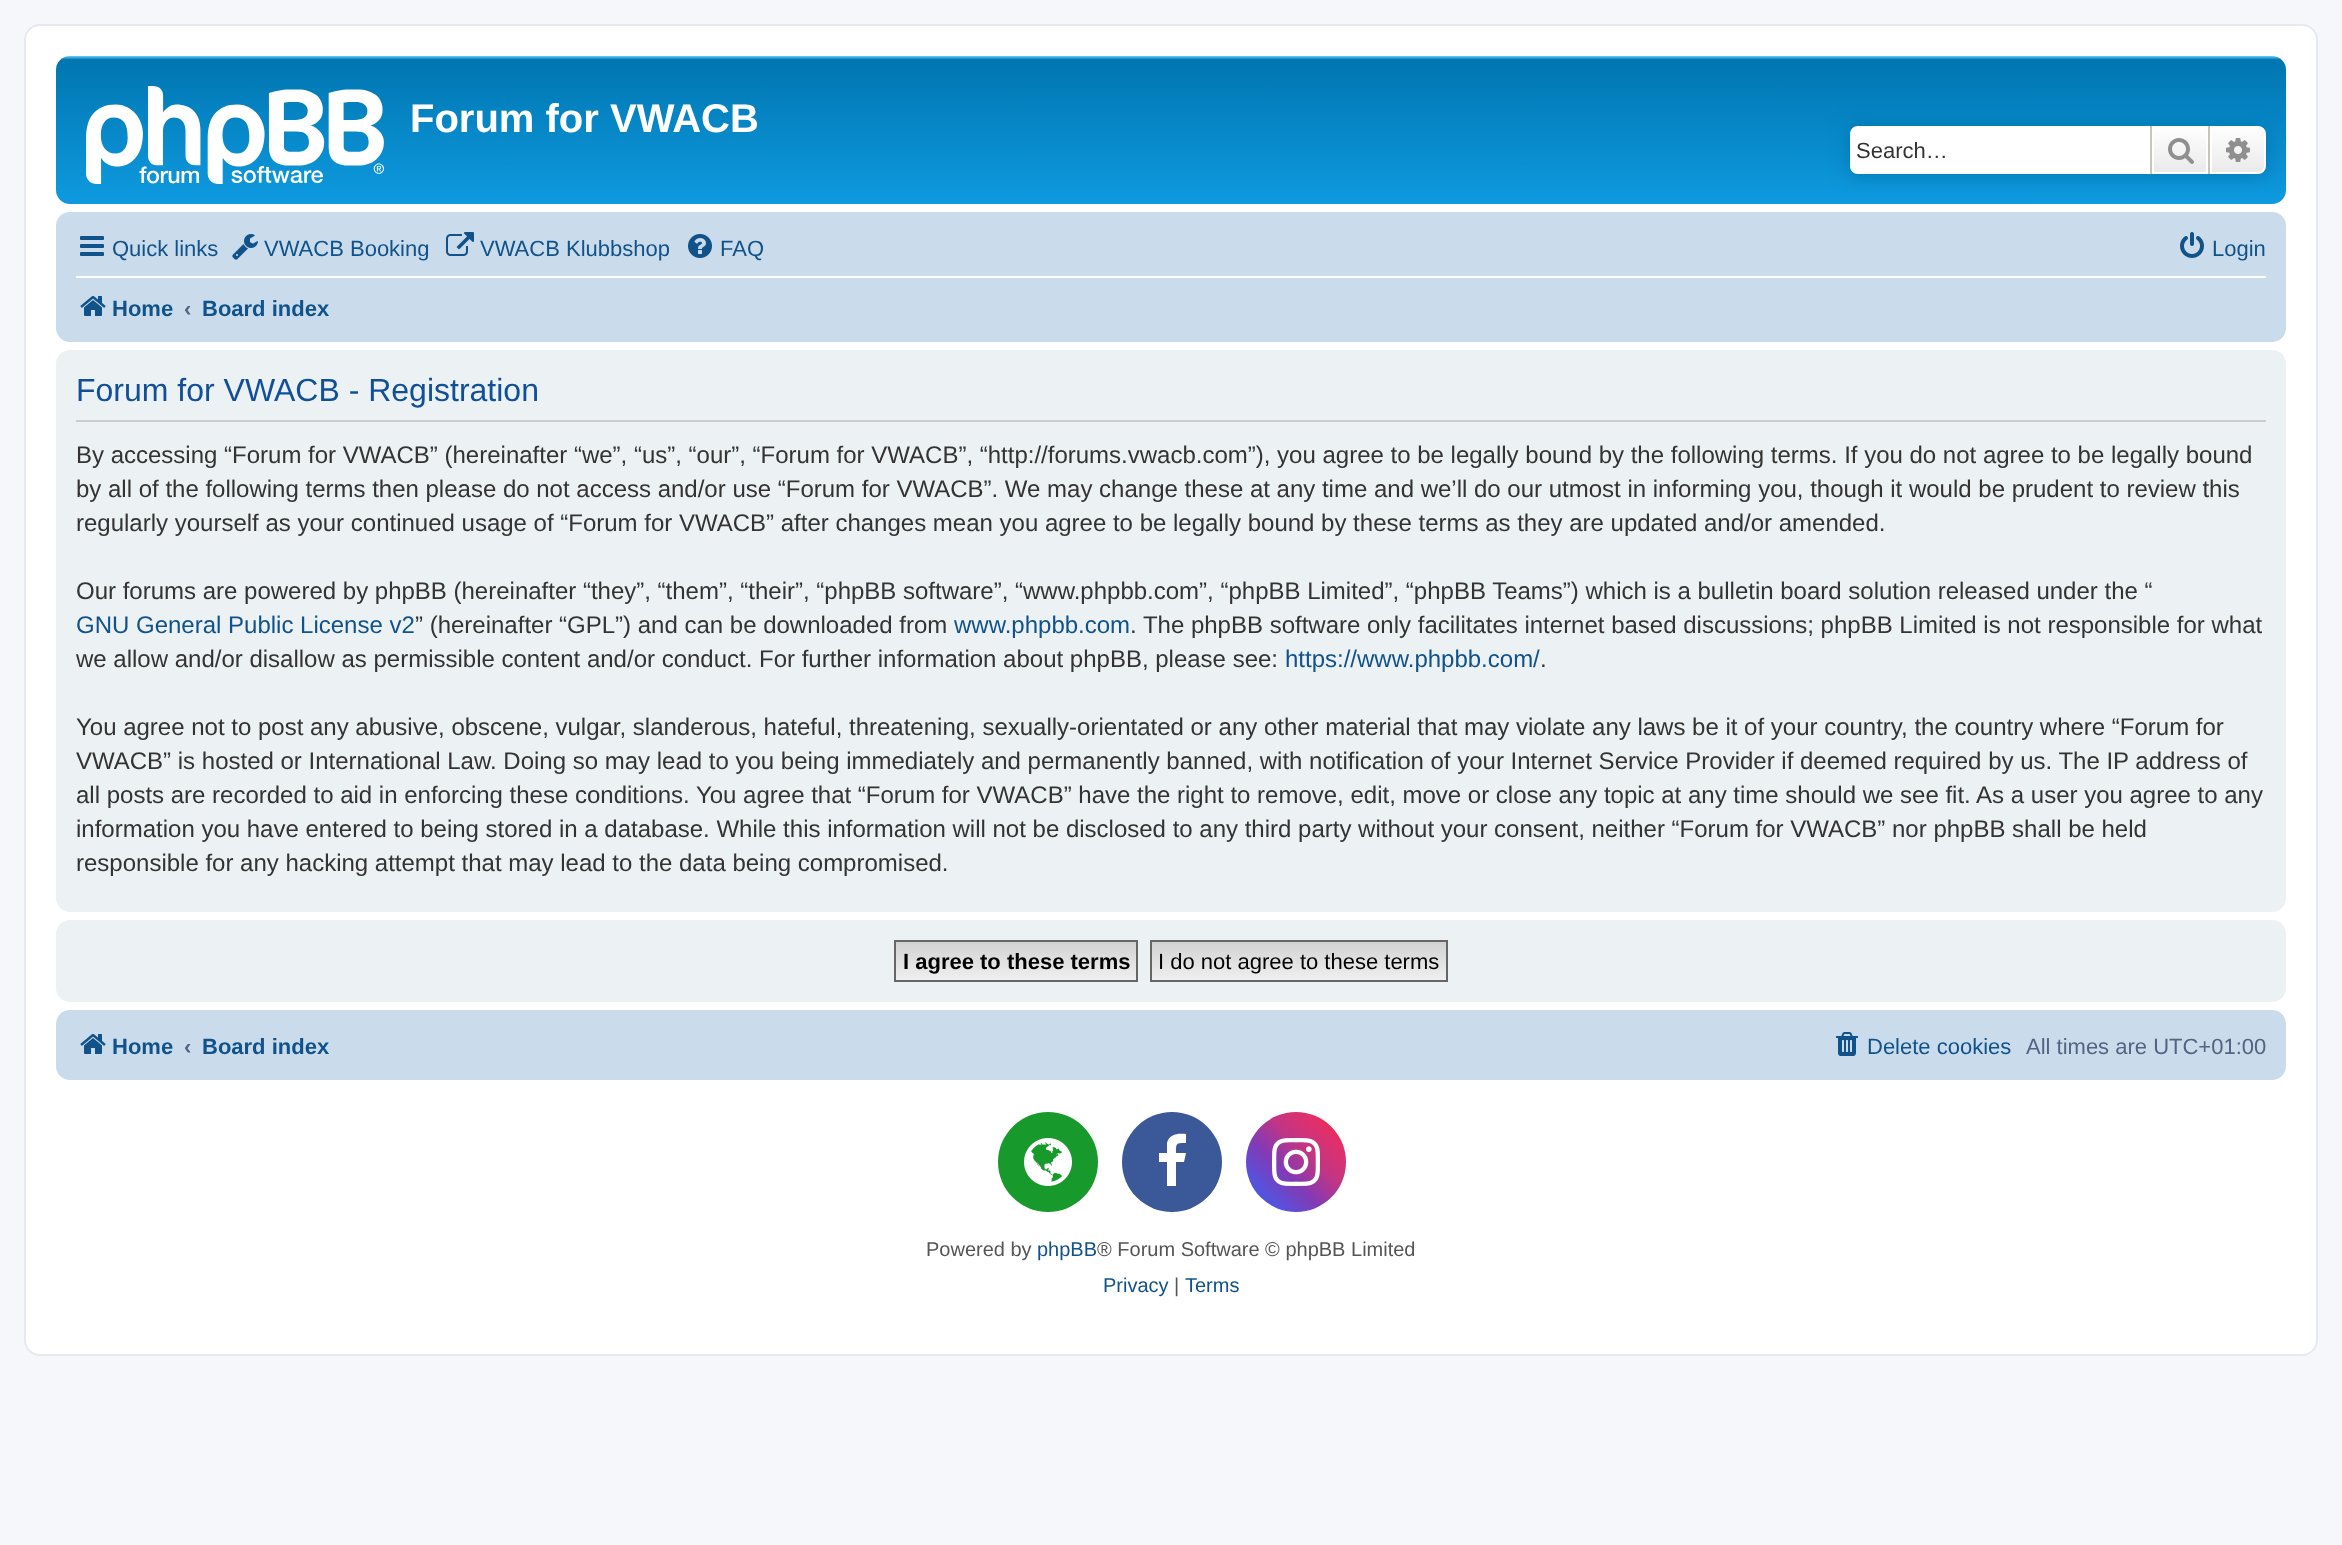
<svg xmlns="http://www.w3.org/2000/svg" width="2342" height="1545">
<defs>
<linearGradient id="g1" gradientUnits="userSpaceOnUse" x1="1171" y1="56" x2="1171" y2="240"><stop offset="0" stop-color="#6aceff"/><stop offset="0.02" stop-color="#0076b1"/><stop offset="1" stop-color="#12a3eb"/></linearGradient>
<linearGradient id="g2" gradientUnits="userSpaceOnUse" x1="2180" y1="126" x2="2180" y2="174"><stop offset="0" stop-color="#fff"/><stop offset="1" stop-color="#e9e9e9"/></linearGradient>
<linearGradient id="g3" gradientUnits="userSpaceOnUse" x1="2238" y1="126" x2="2238" y2="174"><stop offset="0" stop-color="#fff"/><stop offset="1" stop-color="#e9e9e9"/></linearGradient>
<linearGradient id="g4" gradientUnits="userSpaceOnUse" x1="1016" y1="942" x2="1016" y2="980"><stop offset="0" stop-color="#d2d2d2"/><stop offset="1" stop-color="#efefef"/></linearGradient>
<linearGradient id="g5" gradientUnits="userSpaceOnUse" x1="1299" y1="942" x2="1299" y2="980"><stop offset="0" stop-color="#d2d2d2"/><stop offset="1" stop-color="#efefef"/></linearGradient>
<linearGradient id="g6" gradientUnits="userSpaceOnUse" x1="1246" y1="1212" x2="1346" y2="1112"><stop offset="0" stop-color="#405de6"/><stop offset="0.2" stop-color="#5851db"/><stop offset="0.4" stop-color="#833ab4"/><stop offset="0.6" stop-color="#c13584"/><stop offset="0.8" stop-color="#e1306c"/><stop offset="1" stop-color="#fd1d1d"/></linearGradient>
</defs>
<rect width="100%" height="100%" fill="#f5f7fa"/>
<rect x="25" y="25" width="2292" height="1330" rx="15" fill="#fff" stroke="#e6e9ed" stroke-width="2"/>
<rect x="56" y="56" width="2230" height="148" rx="14" fill="url(#g1)"/>
<image x="86" y="86" width="298" height="98" href="media/1.png"/>
<text x="410" y="132" style="font-family:Liberation Sans;font-size:40px;font-weight:bold;fill:#fff">Forum for VWACB</text>
<rect x="1850" y="126" width="416" height="48" rx="8" fill="#0075b0" filter="blur(10px)"/>
<path d="M1858 126h292v48h-292c-4.5 0-8-3.5-8-8v-32c0-4.5 3.5-8 8-8z" fill="#fff"/>
<text x="1856" y="158" style="font-family:Liberation Sans;font-size:22px;fill:#333">Search…</text>
<rect x="2154" y="128" width="52" height="44" fill="url(#g2)"/>
<rect x="2153" y="127" width="54" height="46" fill="none" stroke="#fff" stroke-width="2"/>
<rect x="2208" y="126" width="2" height="48" fill="#c7c3bf"/>
<rect x="2150" y="126" width="2" height="48" fill="#c7c3bf"/>
<image x="2168" y="138" width="26" height="26" href="media/2.png"/>
<path d="M2211 127h47c4 0 7 3 7 7v32c0 4-3 7-7 7h-47z" fill="url(#g3)" stroke="#fff" stroke-width="2"/>
<image x="2226" y="138" width="24" height="24" href="media/3.png"/>
<rect x="56" y="212" width="2230" height="130" rx="14" fill="#cadceb"/>
<image x="80" y="236" width="24" height="20" href="media/4.png"/>
<text x="112" y="256" style="font-family:Liberation Sans;font-size:22px;fill:#105289">Quick links</text>
<image x="232" y="234" width="26" height="26" href="media/5.png"/>
<text x="264" y="256" style="font-family:Liberation Sans;font-size:22px;fill:#105289">VWACB Booking</text>
<image x="446" y="232" width="28" height="24" href="media/6.png"/>
<text x="480" y="256" style="font-family:Liberation Sans;font-size:22px;fill:#105289">VWACB Klubbshop</text>
<image x="688" y="234" width="24" height="24" href="media/7.png"/>
<text x="720" y="256" style="font-family:Liberation Sans;font-size:22px;fill:#105289">FAQ</text>
<image x="2180" y="232" width="24" height="26" href="media/8.png"/>
<text x="2212" y="256" style="font-family:Liberation Sans;font-size:22px;fill:#105289">Login</text>
<rect x="76" y="276" width="2190" height="2" fill="#fff"/>
<image x="80" y="296" width="26" height="20" href="media/9.png"/>
<text x="112" y="316" style="font-family:Liberation Sans;font-size:22px;font-weight:bold;fill:#105289">Home</text>
<text x="184" y="316" style="font-family:Liberation Sans;font-size:22px;font-weight:bold;fill:#536482">‹</text>
<text x="202" y="316" style="font-family:Liberation Sans;font-size:22px;font-weight:bold;fill:#105289">Board index</text>
<rect x="56" y="350" width="2230" height="562" rx="14" fill="#ecf1f3"/>
<rect x="76" y="420" width="2190" height="2" fill="#ccc"/>
<text x="76" y="401" style="font-family:Liberation Sans;font-size:32px;fill:#115098">Forum for VWACB - Registration</text>
<text x="76" y="463" style="font-family:Liberation Sans;font-size:24px;fill:#333">By accessing “Forum for VWACB” (hereinafter “we”, “us”, “our”, “Forum for VWACB”, “http://forums.vwacb.com”), you agree to be legally bound by the following terms. If you do not agree to be legally bound</text>
<text x="76" y="497" style="font-family:Liberation Sans;font-size:24px;fill:#333">by all of the following terms then please do not access and/or use “Forum for VWACB”. We may change these at any time and we’ll do our utmost in informing you, though it would be prudent to review this</text>
<text x="76" y="531" style="font-family:Liberation Sans;font-size:24px;fill:#333">regularly yourself as your continued usage of “Forum for VWACB” after changes mean you agree to be legally bound by these terms as they are updated and/or amended.</text>
<text x="76" y="599" style="font-family:Liberation Sans;font-size:24px;fill:#333">Our forums are powered by phpBB (hereinafter “they”, “them”, “their”, “phpBB software”, “www.phpbb.com”, “phpBB Limited”, “phpBB Teams”) which is a bulletin board solution released under the “</text>
<text x="76" y="633" style="font-family:Liberation Sans;font-size:24px;fill:#105289">GNU General Public License v2</text>
<text x="415" y="633" style="font-family:Liberation Sans;font-size:24px;fill:#333">” (hereinafter “GPL”) and can be downloaded from</text>
<text x="954" y="633" style="font-family:Liberation Sans;font-size:24px;fill:#105289">www.phpbb.com</text>
<text x="1130" y="633" style="font-family:Liberation Sans;font-size:24px;fill:#333">. The phpBB software only facilitates internet based discussions; phpBB Limited is not responsible for what</text>
<text x="76" y="667" style="font-family:Liberation Sans;font-size:24px;fill:#333">we allow and/or disallow as permissible content and/or conduct. For further information about phpBB, please see:</text>
<text x="1285" y="667" style="font-family:Liberation Sans;font-size:24px;fill:#105289">https://www.phpbb.com/</text>
<text x="1540" y="667" style="font-family:Liberation Sans;font-size:24px;fill:#333">.</text>
<text x="76" y="735" style="font-family:Liberation Sans;font-size:24px;fill:#333">You agree not to post any abusive, obscene, vulgar, slanderous, hateful, threatening, sexually-orientated or any other material that may violate any laws be it of your country, the country where “Forum for</text>
<text x="76" y="769" style="font-family:Liberation Sans;font-size:24px;fill:#333">VWACB” is hosted or International Law. Doing so may lead to you being immediately and permanently banned, with notification of your Internet Service Provider if deemed required by us. The IP address of</text>
<text x="76" y="803" style="font-family:Liberation Sans;font-size:24px;fill:#333">all posts are recorded to aid in enforcing these conditions. You agree that “Forum for VWACB” have the right to remove, edit, move or close any topic at any time should we see fit. As a user you agree to any</text>
<text x="76" y="837" style="font-family:Liberation Sans;font-size:24px;fill:#333">information you have entered to being stored in a database. While this information will not be disclosed to any third party without your consent, neither “Forum for VWACB” nor phpBB shall be held</text>
<text x="76" y="871" style="font-family:Liberation Sans;font-size:24px;fill:#333">responsible for any hacking attempt that may lead to the data being compromised.</text>
<rect x="56" y="920" width="2230" height="82" rx="14" fill="#ecf1f3"/>
<rect x="896" y="942" width="240" height="38" fill="url(#g4)"/>
<rect x="895" y="941" width="242" height="40" fill="none" stroke="#666" stroke-width="2"/>
<text x="903" y="969" style="font-family:Liberation Sans;font-size:22px;font-weight:bold;fill:#000">I agree to these terms</text>
<rect x="1152" y="942" width="294" height="38" fill="url(#g5)"/>
<rect x="1151" y="941" width="296" height="40" fill="none" stroke="#666" stroke-width="2"/>
<text x="1158" y="969" style="font-family:Liberation Sans;font-size:22px;fill:#000">I do not agree to these terms</text>
<rect x="56" y="1010" width="2230" height="70" rx="14" fill="#cadceb"/>
<image x="80" y="1034" width="26" height="20" href="media/9.png"/>
<text x="112" y="1054" style="font-family:Liberation Sans;font-size:22px;font-weight:bold;fill:#105289">Home</text>
<text x="184" y="1054" style="font-family:Liberation Sans;font-size:22px;font-weight:bold;fill:#536482">‹</text>
<text x="202" y="1054" style="font-family:Liberation Sans;font-size:22px;font-weight:bold;fill:#105289">Board index</text>
<image x="1836" y="1032" width="22" height="24" href="media/10.png"/>
<text x="1867" y="1054" style="font-family:Liberation Sans;font-size:22px;fill:#105289">Delete cookies</text>
<text x="2026" y="1054" style="font-family:Liberation Sans;font-size:22px;fill:#536482">All times are UTC+01:00</text>
<circle cx="1048" cy="1162" r="50" fill="#18992c"/>
<image x="1024" y="1138" width="48" height="48" href="media/11.png"/>
<circle cx="1172" cy="1162" r="50" fill="#3b5998"/>
<path d="M1186 1134v9c-10 0-10 0-10 10h10l-2 9h-8v24h-9v-24h-8v-9h8v-10c2-9 11-10 19-9z" fill="#fff"/>
<circle cx="1296" cy="1162" r="50" fill="url(#g6)"/>
<image x="1272" y="1138" width="48" height="48" href="media/12.png"/>
<text x="926" y="1256" style="font-family:Liberation Sans;font-size:20px;fill:#555">Powered by</text>
<text x="1037" y="1256" style="font-family:Liberation Sans;font-size:20px;fill:#105289">phpBB</text>
<text x="1097" y="1256" style="font-family:Liberation Sans;font-size:20px;fill:#555">® Forum Software © phpBB Limited</text>
<text x="1103" y="1292" style="font-family:Liberation Sans;font-size:20px;fill:#105289">Privacy</text>
<text x="1174" y="1292" style="font-family:Liberation Sans;font-size:20px;fill:#555">|</text>
<text x="1185" y="1292" style="font-family:Liberation Sans;font-size:20px;fill:#105289">Terms</text>
</svg>
